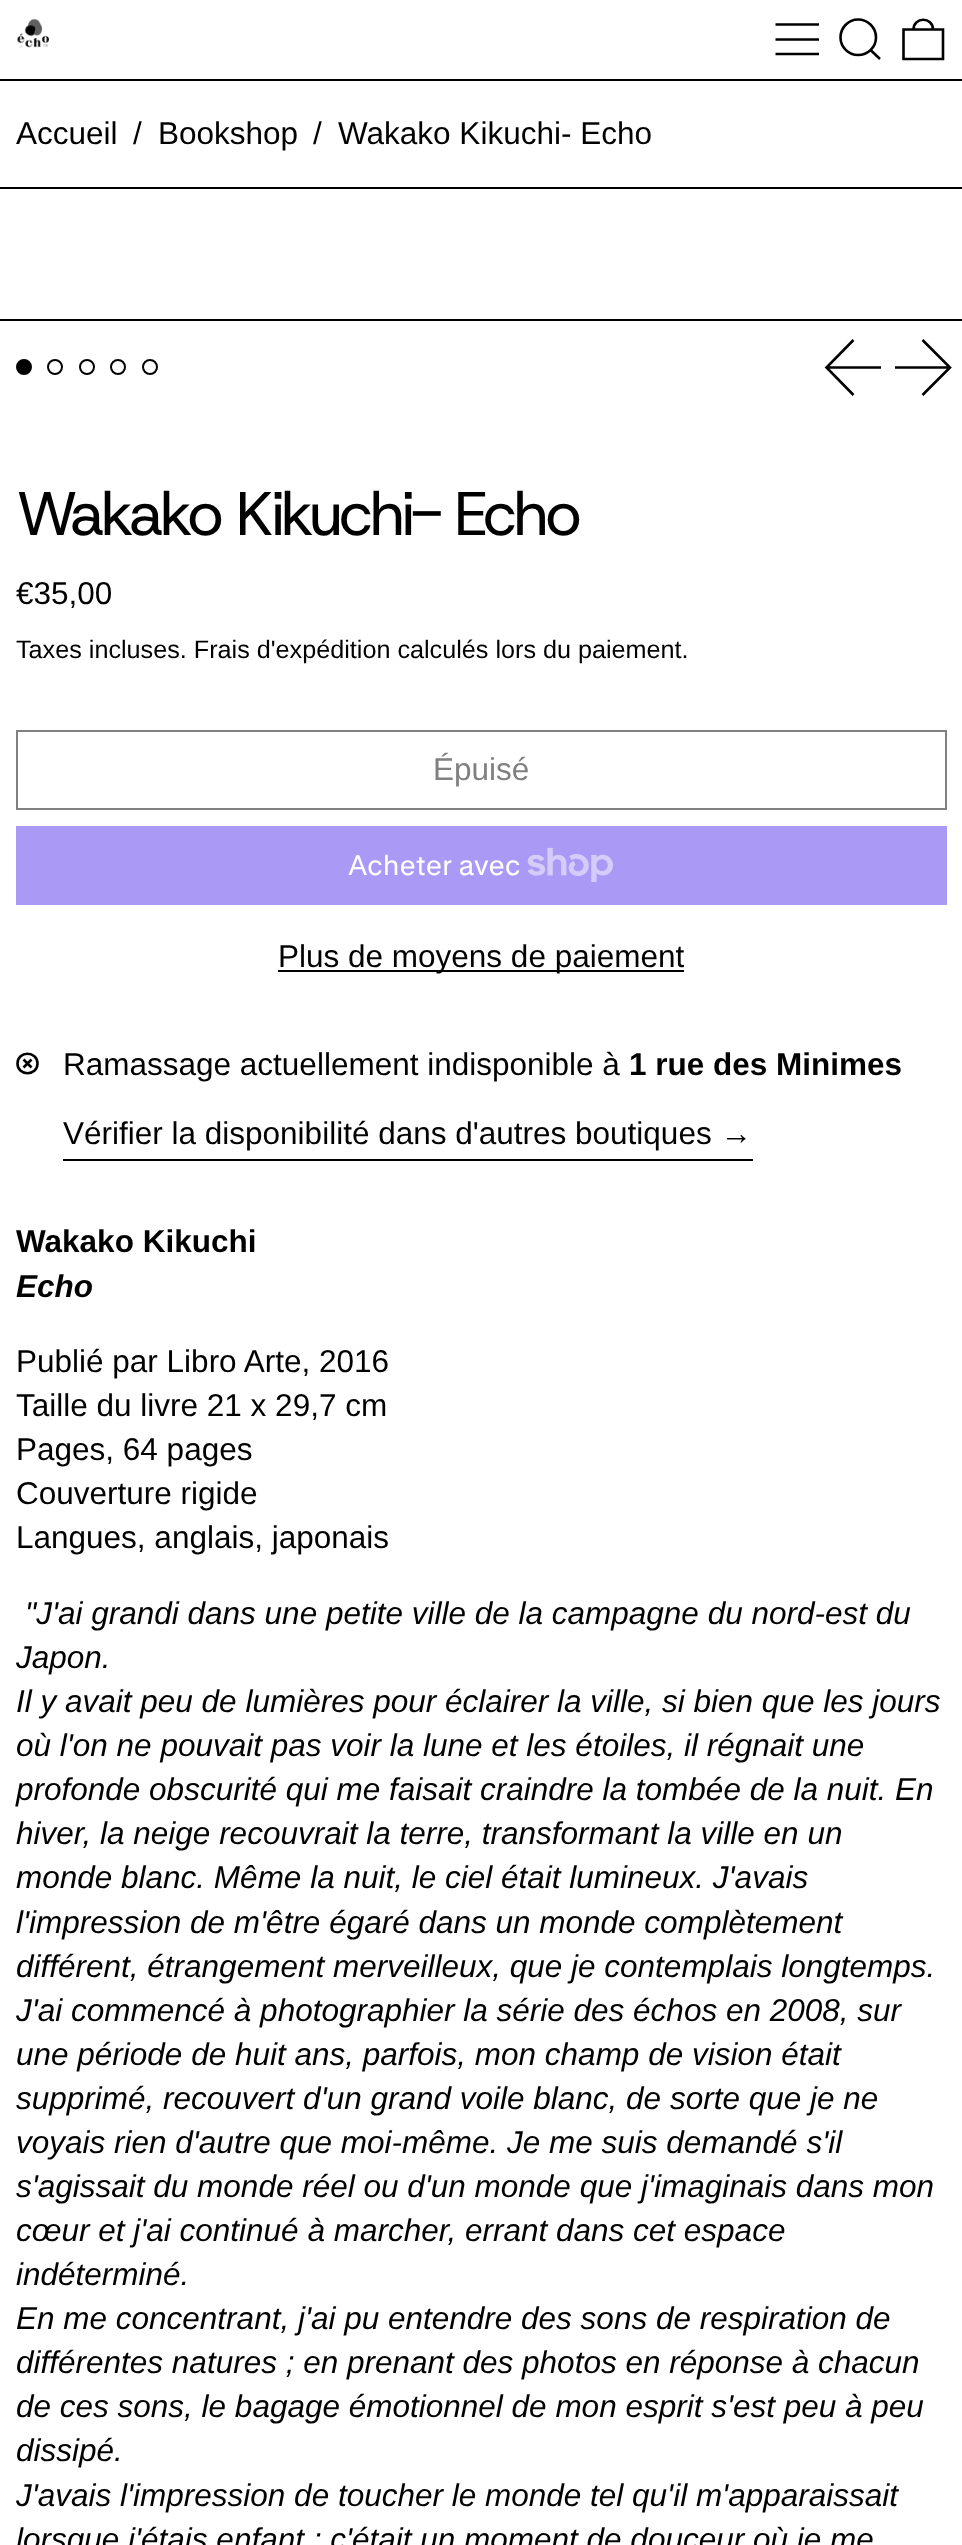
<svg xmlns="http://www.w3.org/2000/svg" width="962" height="2545">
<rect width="100%" height="100%" fill="#fff"/>
<rect y="79" width="962" height="2" fill="#000"/>
<image x="17" y="18" width="32" height="30" href="media/1.png"/>
<path d="M775.5 24.5h43.5m-43.5 15h43.5m-43.5 14.5h43.5" fill="none" stroke="#000" stroke-width="2.6"/>
<path d="M840.5 37.5c0 9.5 8 17.5 17.5 17.5c10 0 18-8 18-17.5c0-10-8-18-18-18c-9.5 0-17.5 8-17.5 18zm30 12.5l9.5 9" fill="none" stroke="#000" stroke-width="2.6"/>
<path d="M903.5 29.5h39.5v29.5h-39.5zm29.5 0c0-13-19.5-13-19.5 0" fill="none" stroke="#000" stroke-width="2.6"/>
<rect y="187" width="962" height="2" fill="#000"/>
<text x="16" y="144" style="font-family:Liberation Sans;font-size:31.5px;fill:#000">Accueil</text>
<text x="133" y="144" style="font-family:Liberation Sans;font-size:31.5px;fill:#000">/</text>
<text x="158" y="144" style="font-family:Liberation Sans;font-size:31.5px;fill:#000">Bookshop</text>
<text x="313" y="144" style="font-family:Liberation Sans;font-size:31.5px;fill:#000">/</text>
<text x="338" y="144" style="font-family:Liberation Sans;font-size:31.5px;fill:#000">Wakako Kikuchi- Echo</text>
<rect y="319" width="962" height="2" fill="#000"/>
<circle cx="24" cy="367" r="7" fill="#000" stroke="#000" stroke-width="2"/>
<circle cx="55" cy="367" r="7" fill="none" stroke="#000" stroke-width="2"/>
<circle cx="87" cy="367" r="7" fill="none" stroke="#000" stroke-width="2"/>
<circle cx="118" cy="367" r="7" fill="none" stroke="#000" stroke-width="2"/>
<circle cx="150" cy="367" r="7" fill="none" stroke="#000" stroke-width="2"/>
<path d="M881 367.5h-54.5m27 27.5l-27-27.5l27-27.5" fill="none" stroke="#000" stroke-width="2.6"/>
<path d="M895 367.5h55m-27.5 27.5l27.5-27.5l-27.5-27.5" fill="none" stroke="#000" stroke-width="2.6"/>
<text x="16" y="535" style="font-family:Host Grotesk;font-size:61.5px;letter-spacing:-3.1px;fill:#000">Wakako Kikuchi- Echo</text>
<text x="16" y="604" style="font-family:Liberation Sans;font-size:31.5px;fill:#000">€35,00</text>
<text x="16" y="658" style="font-family:Liberation Sans;font-size:25.2px;fill:#000">Taxes incluses. Frais d'expédition calculés lors du paiement.</text>
<rect x="17" y="731" width="929" height="78" fill="none" stroke="#808080" stroke-width="2"/>
<text x="433" y="780" style="font-family:Liberation Sans;font-size:31.5px;fill:#808080">Épuisé</text>
<rect x="16" y="826" width="931" height="79" fill="#aa99f5"/>
<text x="348" y="875" style="font-family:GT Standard;font-size:28px;fill:#fff">Acheter avec</text>
<image x="527" y="847" width="86" height="35" href="media/2.png"/>
<rect x="278" y="970" width="406" height="2" fill="#000"/>
<text x="278" y="967" style="font-family:Liberation Sans;font-size:31.5px;fill:#000">Plus de moyens de paiement</text>
<path d="M17.5 1063.5c0 13 20 13 20 0c0-13-20-13-20 0zm6-4l8 8m0-8l-8 8" fill="none" stroke="#000" stroke-width="2.6"/>
<text x="63" y="1075" style="font-family:Liberation Sans;font-size:31.5px;fill:#000">Ramassage actuellement indisponible à</text>
<text x="629" y="1075" style="font-family:Liberation Sans;font-size:31.5px;font-weight:bold;fill:#000">1 rue des Minimes</text>
<text x="63" y="1144" style="font-family:Liberation Sans;font-size:31.5px;fill:#000">Vérifier la disponibilité dans d'autres boutiques →</text>
<rect x="63" y="1159" width="690" height="2" fill="#000"/>
<text x="16" y="1252" style="font-family:Liberation Sans;font-size:31.5px;font-weight:bold;fill:#000">Wakako Kikuchi</text>
<text x="16" y="1297" style="font-family:Liberation Sans;font-size:31.5px;font-weight:bold;font-style:italic;fill:#000">Echo</text>
<text x="16" y="1372" style="font-family:Liberation Sans;font-size:31.5px;fill:#000">Publié par Libro Arte, 2016</text>
<text x="16" y="1416" style="font-family:Liberation Sans;font-size:31.5px;fill:#000">Taille du livre 21 x 29,7 cm</text>
<text x="16" y="1460" style="font-family:Liberation Sans;font-size:31.5px;fill:#000">Pages, 64 pages</text>
<text x="16" y="1504" style="font-family:Liberation Sans;font-size:31.5px;fill:#000">Couverture rigide</text>
<text x="16" y="1548" style="font-family:Liberation Sans;font-size:31.5px;fill:#000">Langues, anglais, japonais</text>
<text x="25" y="1624" style="font-family:Liberation Sans;font-size:31.5px;font-style:italic;fill:#000">"J'ai grandi dans une petite ville de la campagne du nord-est du</text>
<text x="16" y="1668" style="font-family:Liberation Sans;font-size:31.5px;font-style:italic;fill:#000">Japon.</text>
<text x="16" y="1712" style="font-family:Liberation Sans;font-size:31.5px;font-style:italic;fill:#000">Il y avait peu de lumières pour éclairer la ville, si bien que les jours</text>
<text x="16" y="1756" style="font-family:Liberation Sans;font-size:31.5px;font-style:italic;fill:#000">où l'on ne pouvait pas voir la lune et les étoiles, il régnait une</text>
<text x="16" y="1800" style="font-family:Liberation Sans;font-size:31.5px;font-style:italic;fill:#000">profonde obscurité qui me faisait craindre la tombée de la nuit. En</text>
<text x="16" y="1844" style="font-family:Liberation Sans;font-size:31.5px;font-style:italic;fill:#000">hiver, la neige recouvrait la terre, transformant la ville en un</text>
<text x="16" y="1888" style="font-family:Liberation Sans;font-size:31.5px;font-style:italic;fill:#000">monde blanc. Même la nuit, le ciel était lumineux. J'avais</text>
<text x="16" y="1933" style="font-family:Liberation Sans;font-size:31.5px;font-style:italic;fill:#000">l'impression de m'être égaré dans un monde complètement</text>
<text x="16" y="1977" style="font-family:Liberation Sans;font-size:31.5px;font-style:italic;fill:#000">différent, étrangement merveilleux, que je contemplais longtemps.</text>
<text x="16" y="2021" style="font-family:Liberation Sans;font-size:31.5px;font-style:italic;fill:#000">J'ai commencé à photographier la série des échos en 2008, sur</text>
<text x="16" y="2065" style="font-family:Liberation Sans;font-size:31.5px;font-style:italic;fill:#000">une période de huit ans, parfois, mon champ de vision était</text>
<text x="16" y="2109" style="font-family:Liberation Sans;font-size:31.5px;font-style:italic;fill:#000">supprimé, recouvert d'un grand voile blanc, de sorte que je ne</text>
<text x="16" y="2153" style="font-family:Liberation Sans;font-size:31.5px;font-style:italic;fill:#000">voyais rien d'autre que moi-même. Je me suis demandé s'il</text>
<text x="16" y="2197" style="font-family:Liberation Sans;font-size:31.5px;font-style:italic;fill:#000">s'agissait du monde réel ou d'un monde que j'imaginais dans mon</text>
<text x="16" y="2241" style="font-family:Liberation Sans;font-size:31.5px;font-style:italic;fill:#000">cœur et j'ai continué à marcher, errant dans cet espace</text>
<text x="16" y="2285" style="font-family:Liberation Sans;font-size:31.5px;font-style:italic;fill:#000">indéterminé.</text>
<text x="16" y="2329" style="font-family:Liberation Sans;font-size:31.5px;font-style:italic;fill:#000">En me concentrant, j'ai pu entendre des sons de respiration de</text>
<text x="16" y="2373" style="font-family:Liberation Sans;font-size:31.5px;font-style:italic;fill:#000">différentes natures ; en prenant des photos en réponse à chacun</text>
<text x="16" y="2417" style="font-family:Liberation Sans;font-size:31.5px;font-style:italic;fill:#000">de ces sons, le bagage émotionnel de mon esprit s'est peu à peu</text>
<text x="16" y="2461" style="font-family:Liberation Sans;font-size:31.5px;font-style:italic;fill:#000">dissipé.</text>
<text x="16" y="2506" style="font-family:Liberation Sans;font-size:31.5px;font-style:italic;fill:#000">J'avais l'impression de toucher le monde tel qu'il m'apparaissait</text>
<text x="16" y="2550" style="font-family:Liberation Sans;font-size:31.5px;font-style:italic;fill:#000">lorsque j'étais enfant ; c'était un moment de douceur où je me</text>
</svg>
